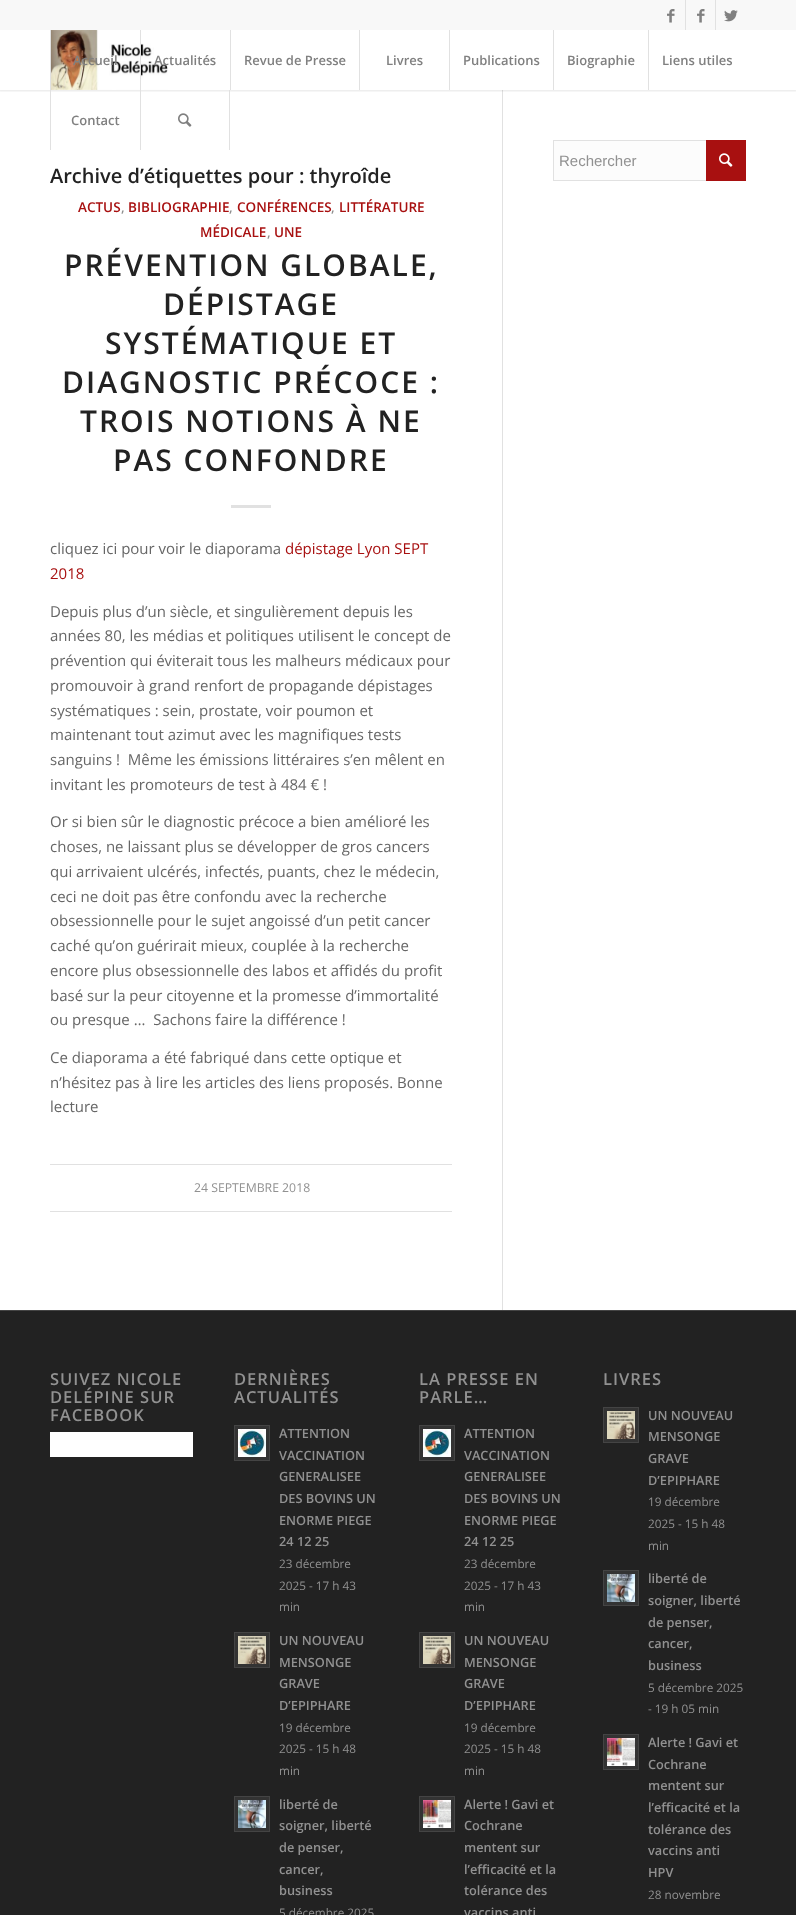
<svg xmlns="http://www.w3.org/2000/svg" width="796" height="1915">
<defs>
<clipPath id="clip1"><rect x="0" y="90" width="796" height="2"/></clipPath>
</defs>
<rect width="100%" height="100%" fill="#fff"/>
<rect x="502" y="90" width="1" height="1220" fill="#e1e1e1"/>
<g clip-path="url(#clip1)">
<rect x="-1" y="-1" width="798" height="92" fill="#0000001a" filter="blur(1px)"/>
</g>
<rect width="796" height="30" fill="#f8f8f8"/>
<rect x="685" width="1" height="30" fill="#e1e1e1"/>
<image x="667" y="9" width="8" height="14" href="media/1.png"/>
<rect x="715" width="1" height="30" fill="#e1e1e1"/>
<image x="697" y="9" width="8" height="14" href="media/1.png"/>
<image x="724" y="10" width="14" height="12" href="media/2.png"/>
<image x="51" y="30" width="117" height="60" href="media/3.png"/>
<rect x="50" y="30" width="1" height="120" fill="#e1e1e1"/>
<text x="73" y="65" style="font-family:Open Sans;font-size:13px;font-weight:600;fill:#808080">Accueil</text>
<rect x="140" y="30" width="1" height="120" fill="#e1e1e1"/>
<text x="154" y="65" style="font-family:Open Sans;font-size:13px;font-weight:600;fill:#808080">Actualités</text>
<rect x="230" y="30" width="1" height="60" fill="#e1e1e1"/>
<text x="244" y="65" style="font-family:Open Sans;font-size:13px;font-weight:600;fill:#808080">Revue de Presse</text>
<rect x="359" y="30" width="1" height="60" fill="#e1e1e1"/>
<text x="386" y="65" style="font-family:Open Sans;font-size:13px;font-weight:600;fill:#808080">Livres</text>
<rect x="449" y="30" width="1" height="60" fill="#e1e1e1"/>
<text x="463" y="65" style="font-family:Open Sans;font-size:13px;font-weight:600;fill:#808080">Publications</text>
<rect x="553" y="30" width="1" height="60" fill="#e1e1e1"/>
<text x="567" y="65" style="font-family:Open Sans;font-size:13px;font-weight:600;fill:#808080">Biographie</text>
<rect x="648" y="30" width="1" height="60" fill="#e1e1e1"/>
<text x="662" y="65" style="font-family:Open Sans;font-size:13px;font-weight:600;fill:#808080">Liens utiles</text>
<text x="71" y="125" style="font-family:Open Sans;font-size:13px;font-weight:600;fill:#808080">Contact</text>
<rect x="229" y="90" width="1" height="60" fill="#e1e1e1"/>
<image x="178" y="113" width="14" height="14" href="media/4.png"/>
<rect x="554" y="141" width="152" height="39" fill="#fcfcfc"/>
<rect x="553.5" y="140.5" width="192" height="40" fill="none" stroke="#e1e1e1"/>
<text x="559" y="166" style="font-family:Liberation Sans;font-size:15px;fill:#919191">Rechercher</text>
<rect x="706" y="140" width="40" height="41" fill="#a81010"/>
<image x="719" y="153" width="14" height="14" href="media/5.png"/>
<text x="50" y="183" style="font-family:Open Sans;font-size:20px;font-weight:600;fill:#222">Archive d’étiquettes pour : thyroîde</text>
<text x="78" y="212" style="font-family:Open Sans;font-size:13.5px;font-weight:600;fill:#a81010">ACTUS</text>
<text x="121" y="212" style="font-family:Open Sans;font-size:13.5px;font-weight:600;fill:#919191">,</text>
<text x="128" y="212" style="font-family:Open Sans;font-size:13.5px;font-weight:600;fill:#a81010">BIBLIOGRAPHIE</text>
<text x="229" y="212" style="font-family:Open Sans;font-size:13.5px;font-weight:600;fill:#919191">,</text>
<text x="237" y="212" style="font-family:Open Sans;font-size:13.5px;font-weight:600;fill:#a81010">CONFÉRENCES</text>
<text x="331" y="212" style="font-family:Open Sans;font-size:13.5px;font-weight:600;fill:#919191">,</text>
<text x="339" y="212" style="font-family:Open Sans;font-size:13.5px;font-weight:600;fill:#a81010">LITTÉRATURE</text>
<text x="200" y="237" style="font-family:Open Sans;font-size:13.5px;font-weight:600;fill:#a81010">MÉDICALE</text>
<text x="267" y="237" style="font-family:Open Sans;font-size:13.5px;font-weight:600;fill:#919191">,</text>
<text x="274" y="237" style="font-family:Open Sans;font-size:13.5px;font-weight:600;fill:#a81010">UNE</text>
<text x="64" y="276" style="font-family:Open Sans;font-size:30px;font-weight:600;letter-spacing:2px;fill:#222">PRÉVENTION GLOBALE,</text>
<text x="163" y="315" style="font-family:Open Sans;font-size:30px;font-weight:600;letter-spacing:2px;fill:#222">DÉPISTAGE</text>
<text x="105" y="354" style="font-family:Open Sans;font-size:30px;font-weight:600;letter-spacing:2px;fill:#222">SYSTÉMATIQUE ET</text>
<text x="62" y="393" style="font-family:Open Sans;font-size:30px;font-weight:600;letter-spacing:2px;fill:#222">DIAGNOSTIC PRÉCOCE :</text>
<text x="80" y="432" style="font-family:Open Sans;font-size:30px;font-weight:600;letter-spacing:2px;fill:#222">TROIS NOTIONS À NE</text>
<text x="113" y="471" style="font-family:Open Sans;font-size:30px;font-weight:600;letter-spacing:2px;fill:#222">PAS CONFONDRE</text>
<rect x="231" y="505" width="40" height="3" fill="#e1e1e1"/>
<text x="50" y="554" style="font-family:Open Sans;font-size:15px;fill:#666">cliquez ici pour voir le diaporama</text>
<text x="285" y="554" style="font-family:Open Sans;font-size:15px;fill:#a81010">dépistage Lyon SEPT</text>
<text x="50" y="579" style="font-family:Open Sans;font-size:15px;fill:#a81010">2018</text>
<text x="50" y="617" style="font-family:Open Sans;font-size:15px;fill:#666">Depuis plus d’un siècle, et singulièrement depuis les</text>
<text x="50" y="641" style="font-family:Open Sans;font-size:15px;fill:#666">années 80, les médias et politiques utilisent le concept de</text>
<text x="50" y="666" style="font-family:Open Sans;font-size:15px;fill:#666">prévention qui éviterait tous les malheurs médicaux pour</text>
<text x="50" y="691" style="font-family:Open Sans;font-size:15px;fill:#666">promouvoir à grand renfort de propagande dépistages</text>
<text x="50" y="716" style="font-family:Open Sans;font-size:15px;fill:#666">systématiques : sein, prostate, voir poumon et</text>
<text x="50" y="740" style="font-family:Open Sans;font-size:15px;fill:#666">maintenant tout azimut avec les magnifiques tests</text>
<text x="50" y="765" style="font-family:Open Sans;font-size:15px;fill:#666" xml:space="preserve">sanguins !  Même les émissions littéraires s’en mêlent en</text>
<text x="50" y="790" style="font-family:Open Sans;font-size:15px;fill:#666">invitant les promoteurs de test à 484 € !</text>
<text x="50" y="827" style="font-family:Open Sans;font-size:15px;fill:#666">Or si bien sûr le diagnostic précoce a bien amélioré les</text>
<text x="50" y="852" style="font-family:Open Sans;font-size:15px;fill:#666">choses, ne laissant plus se développer de gros cancers</text>
<text x="50" y="877" style="font-family:Open Sans;font-size:15px;fill:#666">qui arrivaient ulcérés, infectés, puants, chez le médecin,</text>
<text x="50" y="902" style="font-family:Open Sans;font-size:15px;fill:#666">ceci ne doit pas être confondu avec la recherche</text>
<text x="50" y="926" style="font-family:Open Sans;font-size:15px;fill:#666">obsessionnelle pour le sujet angoissé d’un petit cancer</text>
<text x="50" y="951" style="font-family:Open Sans;font-size:15px;fill:#666">caché qu’on guérirait mieux, couplée à la recherche</text>
<text x="50" y="976" style="font-family:Open Sans;font-size:15px;fill:#666">encore plus obsessionnelle des labos et affidés du profit</text>
<text x="50" y="1001" style="font-family:Open Sans;font-size:15px;fill:#666">basé sur la peur citoyenne et la promesse d’immortalité</text>
<text x="50" y="1025" style="font-family:Open Sans;font-size:15px;fill:#666" xml:space="preserve">ou presque …  Sachons faire la différence !</text>
<text x="50" y="1063" style="font-family:Open Sans;font-size:15px;fill:#666">Ce diaporama a été fabriqué dans cette optique et</text>
<text x="50" y="1088" style="font-family:Open Sans;font-size:15px;fill:#666">n’hésitez pas à lire les articles des liens proposés. Bonne</text>
<text x="50" y="1112" style="font-family:Open Sans;font-size:15px;fill:#666">lecture</text>
<rect x="50" y="1164" width="402" height="1" fill="#e1e1e1"/>
<rect x="50" y="1211" width="402" height="1" fill="#e1e1e1"/>
<text x="194" y="1192" style="font-family:Open Sans;font-size:12.25px;fill:#919191">24 SEPTEMBRE 2018</text>
<rect y="1311" width="796" height="604" fill="#222"/>
<rect y="1310" width="796" height="1" fill="#444"/>
<text x="50" y="1385" style="font-family:Open Sans;font-size:16.5px;font-weight:600;letter-spacing:1px;fill:#919191">SUIVEZ NICOLE</text>
<text x="50" y="1403" style="font-family:Open Sans;font-size:16.5px;font-weight:600;letter-spacing:1px;fill:#919191">DELÉPINE SUR</text>
<text x="50" y="1421" style="font-family:Open Sans;font-size:16.5px;font-weight:600;letter-spacing:1px;fill:#919191">FACEBOOK</text>
<rect x="50" y="1432" width="143" height="25" fill="#fff"/>
<text x="234" y="1385" style="font-family:Open Sans;font-size:16.5px;font-weight:600;letter-spacing:1px;fill:#919191">DERNIÈRES</text>
<text x="234" y="1403" style="font-family:Open Sans;font-size:16.5px;font-weight:600;letter-spacing:1px;fill:#919191">ACTUALITÉS</text>
<rect x="234.5" y="1425.5" width="35" height="35" fill="#333" stroke="#444"/>
<image x="238" y="1429" width="28" height="28" href="media/6.png"/>
<text x="279" y="1438" style="font-family:Open Sans;font-size:12.75px;font-weight:600;fill:#919191">ATTENTION</text>
<text x="279" y="1460" style="font-family:Open Sans;font-size:12.75px;font-weight:600;fill:#919191">VACCINATION</text>
<text x="279" y="1481" style="font-family:Open Sans;font-size:12.75px;font-weight:600;fill:#919191">GENERALISEE</text>
<text x="279" y="1503" style="font-family:Open Sans;font-size:12.75px;font-weight:600;fill:#919191">DES BOVINS UN</text>
<text x="279" y="1525" style="font-family:Open Sans;font-size:12.75px;font-weight:600;fill:#919191">ENORME PIEGE</text>
<text x="279" y="1546" style="font-family:Open Sans;font-size:12.75px;font-weight:600;fill:#919191">24 12 25</text>
<text x="279" y="1568" style="font-family:Open Sans;font-size:11.75px;fill:#919191">23 décembre</text>
<text x="279" y="1590" style="font-family:Open Sans;font-size:11.75px;fill:#919191">2025 - 17 h 43</text>
<text x="279" y="1611" style="font-family:Open Sans;font-size:11.75px;fill:#919191">min</text>
<rect x="234.5" y="1632.5" width="35" height="35" fill="#333" stroke="#444"/>
<image x="238" y="1636" width="28" height="28" href="media/7.png"/>
<text x="279" y="1645" style="font-family:Open Sans;font-size:12.75px;font-weight:600;fill:#919191">UN NOUVEAU</text>
<text x="279" y="1667" style="font-family:Open Sans;font-size:12.75px;font-weight:600;fill:#919191">MENSONGE</text>
<text x="279" y="1688" style="font-family:Open Sans;font-size:12.75px;font-weight:600;fill:#919191">GRAVE</text>
<text x="279" y="1710" style="font-family:Open Sans;font-size:12.75px;font-weight:600;fill:#919191">D’EPIPHARE</text>
<text x="279" y="1732" style="font-family:Open Sans;font-size:11.75px;fill:#919191">19 décembre</text>
<text x="279" y="1753" style="font-family:Open Sans;font-size:11.75px;fill:#919191">2025 - 15 h 48</text>
<text x="279" y="1775" style="font-family:Open Sans;font-size:11.75px;fill:#919191">min</text>
<rect x="234.5" y="1796.5" width="35" height="35" fill="#333" stroke="#444"/>
<image x="238" y="1800" width="28" height="28" href="media/8.png"/>
<text x="279" y="1809" style="font-family:Open Sans;font-size:12.75px;font-weight:600;fill:#919191">liberté de</text>
<text x="279" y="1830" style="font-family:Open Sans;font-size:12.75px;font-weight:600;fill:#919191">soigner, liberté</text>
<text x="279" y="1852" style="font-family:Open Sans;font-size:12.75px;font-weight:600;fill:#919191">de penser,</text>
<text x="279" y="1874" style="font-family:Open Sans;font-size:12.75px;font-weight:600;fill:#919191">cancer,</text>
<text x="279" y="1895" style="font-family:Open Sans;font-size:12.75px;font-weight:600;fill:#919191">business</text>
<text x="279" y="1917" style="font-family:Open Sans;font-size:11.75px;fill:#919191">5 décembre 2025</text>
<text x="419" y="1385" style="font-family:Open Sans;font-size:16.5px;font-weight:600;letter-spacing:1px;fill:#919191">LA PRESSE EN</text>
<text x="419" y="1403" style="font-family:Open Sans;font-size:16.5px;font-weight:600;letter-spacing:1px;fill:#919191">PARLE…</text>
<rect x="419.5" y="1425.5" width="35" height="35" fill="#333" stroke="#444"/>
<image x="423" y="1429" width="28" height="28" href="media/9.png"/>
<text x="464" y="1438" style="font-family:Open Sans;font-size:12.75px;font-weight:600;fill:#919191">ATTENTION</text>
<text x="464" y="1460" style="font-family:Open Sans;font-size:12.75px;font-weight:600;fill:#919191">VACCINATION</text>
<text x="464" y="1481" style="font-family:Open Sans;font-size:12.75px;font-weight:600;fill:#919191">GENERALISEE</text>
<text x="464" y="1503" style="font-family:Open Sans;font-size:12.75px;font-weight:600;fill:#919191">DES BOVINS UN</text>
<text x="464" y="1525" style="font-family:Open Sans;font-size:12.75px;font-weight:600;fill:#919191">ENORME PIEGE</text>
<text x="464" y="1546" style="font-family:Open Sans;font-size:12.75px;font-weight:600;fill:#919191">24 12 25</text>
<text x="464" y="1568" style="font-family:Open Sans;font-size:11.75px;fill:#919191">23 décembre</text>
<text x="464" y="1590" style="font-family:Open Sans;font-size:11.75px;fill:#919191">2025 - 17 h 43</text>
<text x="464" y="1611" style="font-family:Open Sans;font-size:11.75px;fill:#919191">min</text>
<rect x="419.5" y="1632.5" width="35" height="35" fill="#333" stroke="#444"/>
<image x="423" y="1636" width="28" height="28" href="media/10.png"/>
<text x="464" y="1645" style="font-family:Open Sans;font-size:12.75px;font-weight:600;fill:#919191">UN NOUVEAU</text>
<text x="464" y="1667" style="font-family:Open Sans;font-size:12.75px;font-weight:600;fill:#919191">MENSONGE</text>
<text x="464" y="1688" style="font-family:Open Sans;font-size:12.75px;font-weight:600;fill:#919191">GRAVE</text>
<text x="464" y="1710" style="font-family:Open Sans;font-size:12.75px;font-weight:600;fill:#919191">D’EPIPHARE</text>
<text x="464" y="1732" style="font-family:Open Sans;font-size:11.75px;fill:#919191">19 décembre</text>
<text x="464" y="1753" style="font-family:Open Sans;font-size:11.75px;fill:#919191">2025 - 15 h 48</text>
<text x="464" y="1775" style="font-family:Open Sans;font-size:11.75px;fill:#919191">min</text>
<rect x="419.5" y="1796.5" width="35" height="35" fill="#333" stroke="#444"/>
<image x="423" y="1800" width="28" height="28" href="media/11.png"/>
<text x="464" y="1809" style="font-family:Open Sans;font-size:12.75px;font-weight:600;fill:#919191">Alerte ! Gavi et</text>
<text x="464" y="1830" style="font-family:Open Sans;font-size:12.75px;font-weight:600;fill:#919191">Cochrane</text>
<text x="464" y="1852" style="font-family:Open Sans;font-size:12.75px;font-weight:600;fill:#919191">mentent sur</text>
<text x="464" y="1874" style="font-family:Open Sans;font-size:12.75px;font-weight:600;fill:#919191">l’efficacité et la</text>
<text x="464" y="1895" style="font-family:Open Sans;font-size:12.75px;font-weight:600;fill:#919191">tolérance des</text>
<text x="464" y="1917" style="font-family:Open Sans;font-size:12.75px;font-weight:600;fill:#919191">vaccins anti</text>
<text x="603" y="1385" style="font-family:Open Sans;font-size:16.5px;font-weight:600;letter-spacing:1px;fill:#919191">LIVRES</text>
<rect x="603.5" y="1407.5" width="35" height="35" fill="#333" stroke="#444"/>
<image x="607" y="1411" width="28" height="28" href="media/7.png"/>
<text x="648" y="1420" style="font-family:Open Sans;font-size:12.75px;font-weight:600;fill:#919191">UN NOUVEAU</text>
<text x="648" y="1441" style="font-family:Open Sans;font-size:12.75px;font-weight:600;fill:#919191">MENSONGE</text>
<text x="648" y="1463" style="font-family:Open Sans;font-size:12.75px;font-weight:600;fill:#919191">GRAVE</text>
<text x="648" y="1485" style="font-family:Open Sans;font-size:12.75px;font-weight:600;fill:#919191">D’EPIPHARE</text>
<text x="648" y="1506" style="font-family:Open Sans;font-size:11.75px;fill:#919191">19 décembre</text>
<text x="648" y="1528" style="font-family:Open Sans;font-size:11.75px;fill:#919191">2025 - 15 h 48</text>
<text x="648" y="1550" style="font-family:Open Sans;font-size:11.75px;fill:#919191">min</text>
<rect x="603.5" y="1570.5" width="35" height="35" fill="#333" stroke="#444"/>
<image x="607" y="1574" width="28" height="28" href="media/8.png"/>
<text x="648" y="1583" style="font-family:Open Sans;font-size:12.75px;font-weight:600;fill:#919191">liberté de</text>
<text x="648" y="1605" style="font-family:Open Sans;font-size:12.75px;font-weight:600;fill:#919191">soigner, liberté</text>
<text x="648" y="1627" style="font-family:Open Sans;font-size:12.75px;font-weight:600;fill:#919191">de penser,</text>
<text x="648" y="1648" style="font-family:Open Sans;font-size:12.75px;font-weight:600;fill:#919191">cancer,</text>
<text x="648" y="1670" style="font-family:Open Sans;font-size:12.75px;font-weight:600;fill:#919191">business</text>
<text x="648" y="1692" style="font-family:Open Sans;font-size:11.75px;fill:#919191">5 décembre 2025</text>
<text x="648" y="1713" style="font-family:Open Sans;font-size:11.75px;fill:#919191">- 19 h 05 min</text>
<rect x="603.5" y="1734.5" width="35" height="35" fill="#333" stroke="#444"/>
<image x="607" y="1738" width="28" height="28" href="media/12.png"/>
<text x="648" y="1747" style="font-family:Open Sans;font-size:12.75px;font-weight:600;fill:#919191">Alerte ! Gavi et</text>
<text x="648" y="1769" style="font-family:Open Sans;font-size:12.75px;font-weight:600;fill:#919191">Cochrane</text>
<text x="648" y="1790" style="font-family:Open Sans;font-size:12.75px;font-weight:600;fill:#919191">mentent sur</text>
<text x="648" y="1812" style="font-family:Open Sans;font-size:12.75px;font-weight:600;fill:#919191">l’efficacité et la</text>
<text x="648" y="1834" style="font-family:Open Sans;font-size:12.75px;font-weight:600;fill:#919191">tolérance des</text>
<text x="648" y="1855" style="font-family:Open Sans;font-size:12.75px;font-weight:600;fill:#919191">vaccins anti</text>
<text x="648" y="1877" style="font-family:Open Sans;font-size:12.75px;font-weight:600;fill:#919191">HPV</text>
<text x="648" y="1899" style="font-family:Open Sans;font-size:11.75px;fill:#919191">28 novembre</text>
</svg>
